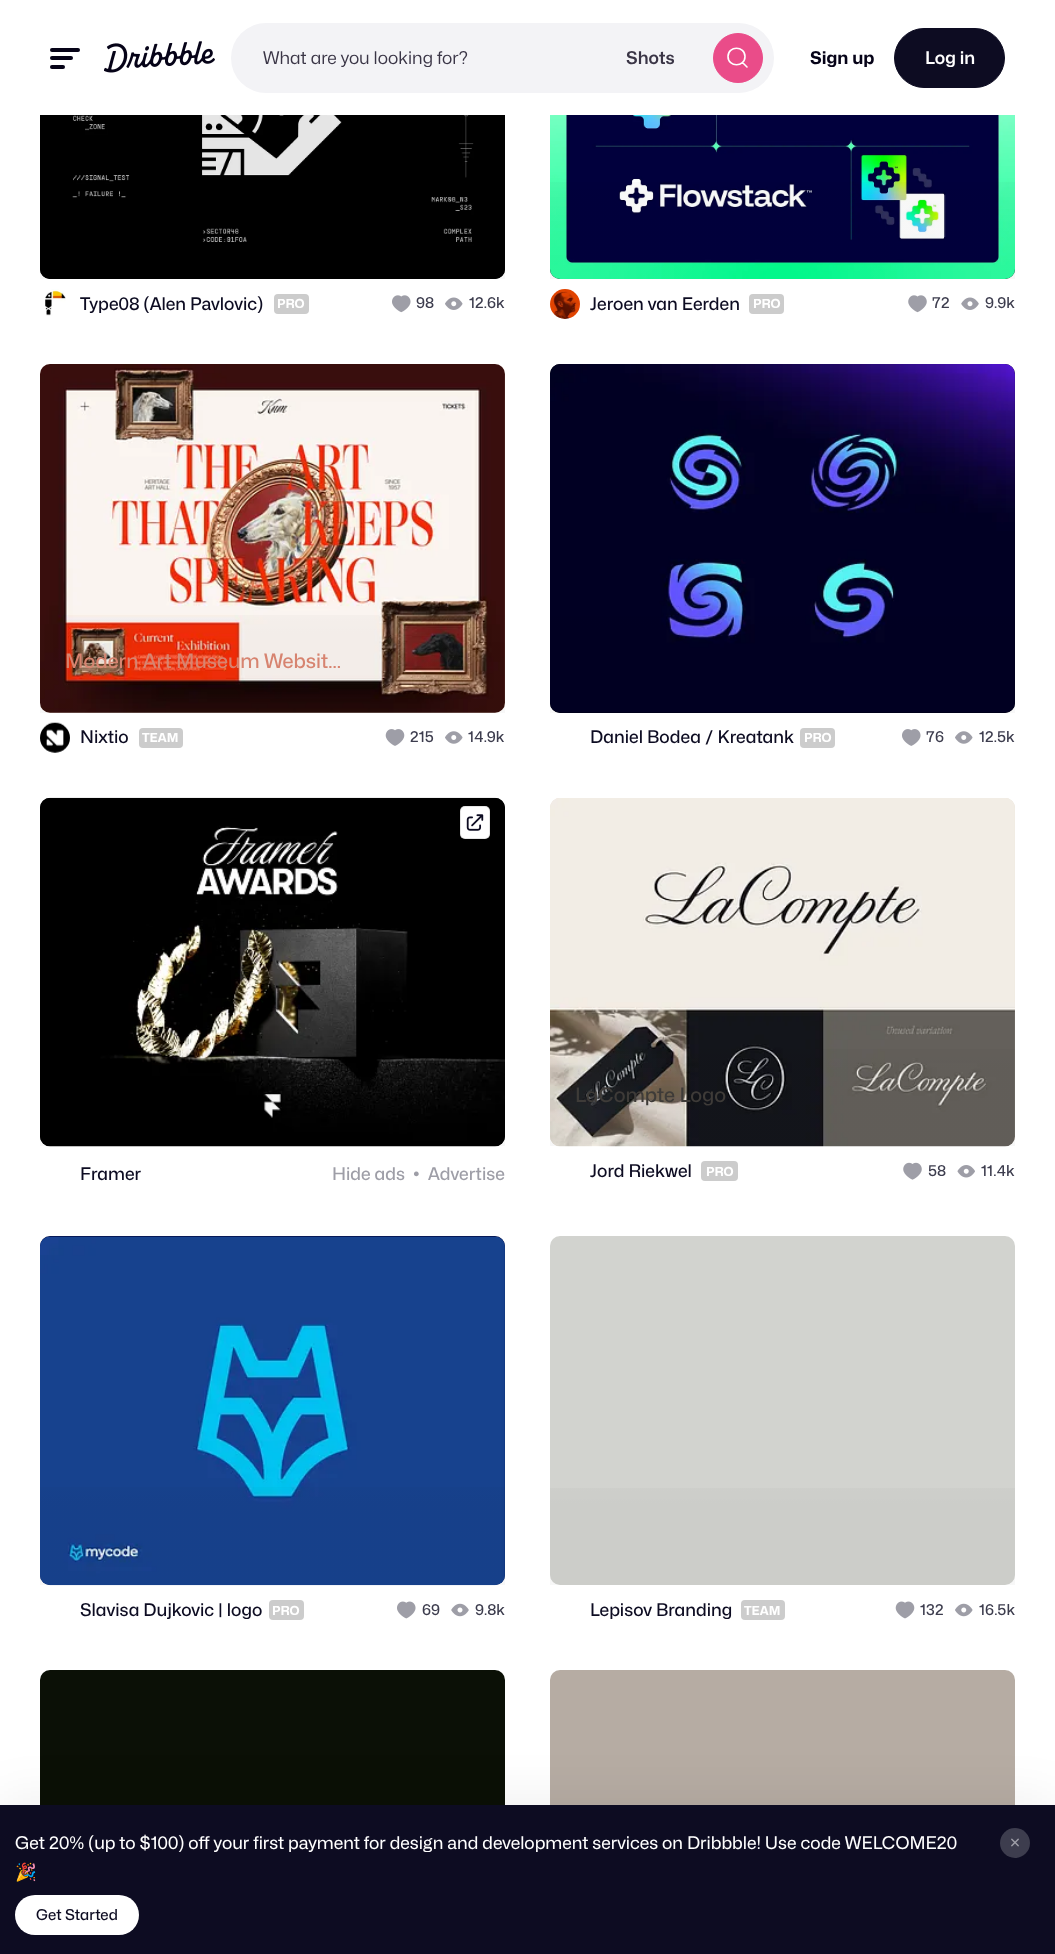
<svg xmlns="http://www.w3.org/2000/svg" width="1055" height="1954">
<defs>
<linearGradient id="g1" gradientUnits="userSpaceOnUse" x1="272" y1="-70" x2="273" y2="279"><stop offset="0" stop-color="#000" stop-opacity="0"/><stop offset="0.15" stop-color="#000" stop-opacity="0"/><stop offset="0.23" stop-color="#000" stop-opacity="0"/><stop offset="0.29" stop-color="#000" stop-opacity="0"/><stop offset="0.35" stop-color="#000" stop-opacity="0.01"/><stop offset="0.41" stop-color="#000" stop-opacity="0.01"/><stop offset="0.47" stop-color="#000" stop-opacity="0.02"/><stop offset="0.53" stop-color="#000" stop-opacity="0.02"/><stop offset="0.59" stop-color="#000" stop-opacity="0.02"/><stop offset="0.65" stop-color="#000" stop-opacity="0.02"/><stop offset="0.71" stop-color="#000" stop-opacity="0.02"/><stop offset="0.78" stop-color="#000" stop-opacity="0.03"/><stop offset="0.84" stop-color="#000" stop-opacity="0.03"/><stop offset="0.92" stop-color="#000" stop-opacity="0.03"/><stop offset="1" stop-color="#000" stop-opacity="0.03"/></linearGradient>
<linearGradient id="g2" gradientUnits="userSpaceOnUse" x1="783" y1="-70" x2="783" y2="279"><stop offset="0" stop-color="#000" stop-opacity="0"/><stop offset="0.15" stop-color="#000" stop-opacity="0"/><stop offset="0.23" stop-color="#000" stop-opacity="0"/><stop offset="0.29" stop-color="#000" stop-opacity="0"/><stop offset="0.35" stop-color="#000" stop-opacity="0.01"/><stop offset="0.41" stop-color="#000" stop-opacity="0.01"/><stop offset="0.47" stop-color="#000" stop-opacity="0.02"/><stop offset="0.53" stop-color="#000" stop-opacity="0.02"/><stop offset="0.59" stop-color="#000" stop-opacity="0.02"/><stop offset="0.65" stop-color="#000" stop-opacity="0.02"/><stop offset="0.71" stop-color="#000" stop-opacity="0.02"/><stop offset="0.78" stop-color="#000" stop-opacity="0.03"/><stop offset="0.84" stop-color="#000" stop-opacity="0.03"/><stop offset="0.92" stop-color="#000" stop-opacity="0.03"/><stop offset="1" stop-color="#000" stop-opacity="0.03"/></linearGradient>
<linearGradient id="g3" gradientUnits="userSpaceOnUse" x1="272" y1="364" x2="273" y2="713"><stop offset="0" stop-color="#000" stop-opacity="0"/><stop offset="0.15" stop-color="#000" stop-opacity="0"/><stop offset="0.23" stop-color="#000" stop-opacity="0"/><stop offset="0.29" stop-color="#000" stop-opacity="0"/><stop offset="0.35" stop-color="#000" stop-opacity="0.01"/><stop offset="0.41" stop-color="#000" stop-opacity="0.01"/><stop offset="0.47" stop-color="#000" stop-opacity="0.02"/><stop offset="0.53" stop-color="#000" stop-opacity="0.02"/><stop offset="0.59" stop-color="#000" stop-opacity="0.02"/><stop offset="0.65" stop-color="#000" stop-opacity="0.02"/><stop offset="0.71" stop-color="#000" stop-opacity="0.02"/><stop offset="0.78" stop-color="#000" stop-opacity="0.03"/><stop offset="0.84" stop-color="#000" stop-opacity="0.03"/><stop offset="0.92" stop-color="#000" stop-opacity="0.03"/><stop offset="1" stop-color="#000" stop-opacity="0.03"/></linearGradient>
<linearGradient id="g4" gradientUnits="userSpaceOnUse" x1="783" y1="364" x2="783" y2="713"><stop offset="0" stop-color="#000" stop-opacity="0"/><stop offset="0.15" stop-color="#000" stop-opacity="0"/><stop offset="0.23" stop-color="#000" stop-opacity="0"/><stop offset="0.29" stop-color="#000" stop-opacity="0"/><stop offset="0.35" stop-color="#000" stop-opacity="0.01"/><stop offset="0.41" stop-color="#000" stop-opacity="0.01"/><stop offset="0.47" stop-color="#000" stop-opacity="0.02"/><stop offset="0.53" stop-color="#000" stop-opacity="0.02"/><stop offset="0.59" stop-color="#000" stop-opacity="0.02"/><stop offset="0.65" stop-color="#000" stop-opacity="0.02"/><stop offset="0.71" stop-color="#000" stop-opacity="0.02"/><stop offset="0.78" stop-color="#000" stop-opacity="0.03"/><stop offset="0.84" stop-color="#000" stop-opacity="0.03"/><stop offset="0.92" stop-color="#000" stop-opacity="0.03"/><stop offset="1" stop-color="#000" stop-opacity="0.03"/></linearGradient>
<linearGradient id="g5" gradientUnits="userSpaceOnUse" x1="272" y1="798" x2="273" y2="1146"><stop offset="0" stop-color="#000" stop-opacity="0"/><stop offset="0.15" stop-color="#000" stop-opacity="0"/><stop offset="0.23" stop-color="#000" stop-opacity="0"/><stop offset="0.29" stop-color="#000" stop-opacity="0"/><stop offset="0.35" stop-color="#000" stop-opacity="0.01"/><stop offset="0.41" stop-color="#000" stop-opacity="0.01"/><stop offset="0.47" stop-color="#000" stop-opacity="0.02"/><stop offset="0.53" stop-color="#000" stop-opacity="0.02"/><stop offset="0.59" stop-color="#000" stop-opacity="0.02"/><stop offset="0.65" stop-color="#000" stop-opacity="0.02"/><stop offset="0.71" stop-color="#000" stop-opacity="0.02"/><stop offset="0.78" stop-color="#000" stop-opacity="0.03"/><stop offset="0.84" stop-color="#000" stop-opacity="0.03"/><stop offset="0.92" stop-color="#000" stop-opacity="0.03"/><stop offset="1" stop-color="#000" stop-opacity="0.03"/></linearGradient>
<linearGradient id="g6" gradientUnits="userSpaceOnUse" x1="783" y1="798" x2="783" y2="1146"><stop offset="0" stop-color="#000" stop-opacity="0"/><stop offset="0.15" stop-color="#000" stop-opacity="0"/><stop offset="0.23" stop-color="#000" stop-opacity="0"/><stop offset="0.29" stop-color="#000" stop-opacity="0"/><stop offset="0.35" stop-color="#000" stop-opacity="0.01"/><stop offset="0.41" stop-color="#000" stop-opacity="0.01"/><stop offset="0.47" stop-color="#000" stop-opacity="0.02"/><stop offset="0.53" stop-color="#000" stop-opacity="0.02"/><stop offset="0.59" stop-color="#000" stop-opacity="0.02"/><stop offset="0.65" stop-color="#000" stop-opacity="0.02"/><stop offset="0.71" stop-color="#000" stop-opacity="0.02"/><stop offset="0.78" stop-color="#000" stop-opacity="0.03"/><stop offset="0.84" stop-color="#000" stop-opacity="0.03"/><stop offset="0.92" stop-color="#000" stop-opacity="0.03"/><stop offset="1" stop-color="#000" stop-opacity="0.03"/></linearGradient>
<linearGradient id="g7" gradientUnits="userSpaceOnUse" x1="272" y1="1236" x2="273" y2="1585"><stop offset="0" stop-color="#000" stop-opacity="0"/><stop offset="0.15" stop-color="#000" stop-opacity="0"/><stop offset="0.23" stop-color="#000" stop-opacity="0"/><stop offset="0.29" stop-color="#000" stop-opacity="0"/><stop offset="0.35" stop-color="#000" stop-opacity="0.01"/><stop offset="0.41" stop-color="#000" stop-opacity="0.01"/><stop offset="0.47" stop-color="#000" stop-opacity="0.02"/><stop offset="0.53" stop-color="#000" stop-opacity="0.02"/><stop offset="0.59" stop-color="#000" stop-opacity="0.02"/><stop offset="0.65" stop-color="#000" stop-opacity="0.02"/><stop offset="0.71" stop-color="#000" stop-opacity="0.02"/><stop offset="0.78" stop-color="#000" stop-opacity="0.03"/><stop offset="0.84" stop-color="#000" stop-opacity="0.03"/><stop offset="0.92" stop-color="#000" stop-opacity="0.03"/><stop offset="1" stop-color="#000" stop-opacity="0.03"/></linearGradient>
<linearGradient id="g8" gradientUnits="userSpaceOnUse" x1="783" y1="1236" x2="783" y2="1585"><stop offset="0" stop-color="#000" stop-opacity="0"/><stop offset="0.15" stop-color="#000" stop-opacity="0"/><stop offset="0.23" stop-color="#000" stop-opacity="0"/><stop offset="0.29" stop-color="#000" stop-opacity="0"/><stop offset="0.35" stop-color="#000" stop-opacity="0.01"/><stop offset="0.41" stop-color="#000" stop-opacity="0.01"/><stop offset="0.47" stop-color="#000" stop-opacity="0.02"/><stop offset="0.53" stop-color="#000" stop-opacity="0.02"/><stop offset="0.59" stop-color="#000" stop-opacity="0.02"/><stop offset="0.65" stop-color="#000" stop-opacity="0.02"/><stop offset="0.71" stop-color="#000" stop-opacity="0.02"/><stop offset="0.78" stop-color="#000" stop-opacity="0.03"/><stop offset="0.84" stop-color="#000" stop-opacity="0.03"/><stop offset="0.92" stop-color="#000" stop-opacity="0.03"/><stop offset="1" stop-color="#000" stop-opacity="0.03"/></linearGradient>
</defs>
<rect width="100%" height="100%" fill="#fff"/>
<rect x="40" y="-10" width="465" height="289" rx="10" fill="#000"/>
<rect x="550" y="-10" width="465" height="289" rx="10" fill="#00000c"/>
<rect x="40" width="975" height="115" fill="#fff"/>
<rect x="50" y="48" width="30" height="4" rx="2" fill="#060318"/>
<rect x="50" y="56" width="23" height="4" rx="2" fill="#060318"/>
<rect x="50" y="65" width="15" height="4" rx="2" fill="#060318"/>
<image x="104" y="41" width="111" height="32" href="media/1.png"/>
<rect x="231" y="23" width="543" height="70" rx="35" fill="#f3f3f6"/>
<text x="263" y="64" style="font-family:Mona Sans;font-size:17.5px;fill:#3a3546">What are you looking for?</text>
<text x="626" y="64" style="font-family:Mona Sans;font-size:17.5px;font-weight:600;fill:#3a3546">Shots</text>
<circle cx="738" cy="58" r="24.5" fill="#ea4c89" stroke="#ea4c89"/>
<path d="M747 67l-4.5-4.5m2.5-6c0 11-17 11-17 0c0-11 17-11 17 0z" fill="none" stroke="#fff" stroke-width="1.6" stroke-linecap="round" stroke-linejoin="round"/>
<text x="810" y="64" style="font-family:Mona Sans;font-size:17.5px;font-weight:bold;fill:#060318">Sign up</text>
<rect x="894.5" y="28.5" width="110" height="59" rx="29.5" fill="#0d0c22" stroke="#0d0c22"/>
<text x="925" y="64" style="font-family:Mona Sans;font-size:17.5px;font-weight:600;fill:#fff">Log in</text>
<image x="40" y="115" width="465" height="164" href="media/2.png"/>
<rect x="40" y="192" width="465" height="87" fill="url(#g1)"/>
<image x="45" y="289" width="21" height="27" href="media/3.png"/>
<text x="80" y="310" style="font-family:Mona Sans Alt;font-size:17.5px;font-weight:500;fill:#0d0c22">Type08 (Alen Pavlovic)</text>
<rect x="274" y="294" width="35" height="20" rx="4" fill="#ccc"/>
<text x="277" y="308" style="font-family:Mona Sans;font-size:12.5px;font-weight:bold;fill:#fff">PRO</text>
<image x="392" y="295" width="19" height="18" href="media/4.png"/>
<text x="416" y="308" style="font-family:Mona Sans;font-size:15px;font-weight:500;fill:#3d3d4e">98</text>
<image x="445" y="297" width="18" height="13" href="media/5.png"/>
<text x="469" y="308" style="font-family:Mona Sans;font-size:15px;font-weight:500;fill:#3d3d4e">12.6k</text>
<image x="550" y="115" width="465" height="164" href="media/6.png"/>
<rect x="550" y="182" width="465" height="97" fill="url(#g2)"/>
<image x="550" y="289" width="30" height="30" href="media/7.png"/>
<text x="590" y="310" style="font-family:Mona Sans;font-size:17.5px;font-weight:500;fill:#0d0c22">Jeroen van Eerden</text>
<rect x="749" y="294" width="35" height="20" rx="4" fill="#ccc"/>
<text x="753" y="308" style="font-family:Mona Sans;font-size:12.5px;font-weight:bold;fill:#fff">PRO</text>
<image x="908" y="295" width="19" height="18" href="media/8.png"/>
<text x="932" y="308" style="font-family:Mona Sans;font-size:15px;font-weight:500;fill:#3d3d4e">72</text>
<image x="961" y="297" width="18" height="13" href="media/9.png"/>
<text x="985" y="308" style="font-family:Mona Sans;font-size:15px;font-weight:500;fill:#3d3d4e">9.9k</text>
<rect x="40" y="364" width="465" height="349" rx="10" fill="#f4e9e0"/>
<image x="40" y="364" width="465" height="349" href="media/10.png"/>
<rect x="40" y="615" width="465" height="98" fill="url(#g3)"/>
<text x="65" y="668" style="font-family:Mona Sans;font-size:20px;font-weight:500;fill:#d78470">Modern Art Museum Websit…</text>
<image x="40" y="722" width="30" height="31" href="media/11.png"/>
<text x="80" y="743" style="font-family:Mona Sans;font-size:17.5px;font-weight:500;fill:#0d0c22">Nixtio</text>
<rect x="139" y="728" width="44" height="20" rx="4" fill="#ccc"/>
<text x="142" y="742" style="font-family:Mona Sans;font-size:12.5px;font-weight:bold;fill:#fff">TEAM</text>
<image x="385" y="729" width="20" height="17" href="media/12.png"/>
<text x="410" y="742" style="font-family:Mona Sans;font-size:15px;font-weight:500;fill:#3d3d4e">215</text>
<image x="445" y="731" width="18" height="13" href="media/13.png"/>
<text x="468" y="742" style="font-family:Mona Sans;font-size:15px;font-weight:500;fill:#3d3d4e">14.9k</text>
<rect x="550" y="364" width="465" height="349" rx="10" fill="#000007"/>
<image x="550" y="364" width="465" height="349" href="media/14.png"/>
<rect x="550" y="616" width="465" height="97" fill="url(#g4)"/>
<text x="590" y="743" style="font-family:Mona Sans;font-size:17.5px;font-weight:500;fill:#0d0c22">Daniel Bodea / Kreatank</text>
<rect x="800" y="728" width="35" height="20" rx="4" fill="#ccc"/>
<text x="804" y="742" style="font-family:Mona Sans;font-size:12.5px;font-weight:bold;fill:#fff">PRO</text>
<image x="902" y="729" width="19" height="17" href="media/15.png"/>
<text x="926" y="742" style="font-family:Mona Sans;font-size:15px;font-weight:500;fill:#3d3d4e">76</text>
<image x="955" y="731" width="18" height="13" href="media/13.png"/>
<text x="979" y="742" style="font-family:Mona Sans;font-size:15px;font-weight:500;fill:#3d3d4e">12.5k</text>
<rect x="40" y="798" width="465" height="348" rx="10" fill="#010101"/>
<image x="40" y="797" width="465" height="350" href="media/16.png"/>
<rect x="460" y="806" width="30" height="33" rx="5" fill="#fff"/>
<rect x="460.5" y="806.5" width="29" height="32" rx="4.5" fill="none" stroke="#0000001a"/>
<image x="466" y="814" width="18" height="17" href="media/17.png"/>
<rect x="40" y="1048" width="465" height="98" fill="url(#g5)"/>
<text x="80" y="1180" style="font-family:Mona Sans;font-size:17.5px;font-weight:500;fill:#0d0c22">Framer</text>
<text x="332" y="1180" style="font-family:Mona Sans;font-size:17.5px;font-weight:500;fill:#9e9ea7">Hide ads</text>
<text x="413" y="1177" style="font-family:Liberation Sans;font-size:11px;fill:#9e9ea7">●</text>
<text x="428" y="1180" style="font-family:Mona Sans;font-size:17.5px;font-weight:500;fill:#9e9ea7">Advertise</text>
<rect x="550" y="798" width="465" height="348" rx="10" fill="#e2d6c6"/>
<image x="550" y="798" width="465" height="349" href="media/18.png"/>
<rect x="550" y="1049" width="465" height="97" fill="url(#g6)"/>
<text x="575" y="1102" style="font-family:Mona Sans;font-size:20px;font-weight:500;fill:#3e3b38">LaCompte Logo</text>
<text x="590" y="1177" style="font-family:Mona Sans;font-size:17.5px;font-weight:500;fill:#0d0c22">Jord Riekwel</text>
<rect x="701" y="1161" width="37" height="20" rx="4" fill="#ccc"/>
<text x="706" y="1176" style="font-family:Mona Sans;font-size:12.5px;font-weight:bold;fill:#fff">PRO</text>
<image x="903" y="1162" width="19" height="18" href="media/19.png"/>
<text x="928" y="1176" style="font-family:Mona Sans;font-size:15px;font-weight:500;fill:#3d3d4e">58</text>
<image x="957" y="1165" width="18" height="13" href="media/20.png"/>
<text x="981" y="1176" style="font-family:Mona Sans;font-size:15px;font-weight:500;fill:#3d3d4e">11.4k</text>
<rect x="40" y="1236" width="465" height="349" rx="10" fill="#020e46"/>
<image x="40" y="1236" width="465" height="350" href="media/21.png"/>
<rect x="40" y="1487" width="465" height="98" fill="url(#g7)"/>
<text x="80" y="1616" style="font-family:Mona Sans;font-size:17.5px;font-weight:500;fill:#0d0c22">Slavisa Dujkovic | logo</text>
<rect x="269" y="1600" width="35" height="20" rx="4" fill="#ccc"/>
<text x="272" y="1615" style="font-family:Mona Sans;font-size:12.5px;font-weight:bold;fill:#fff">PRO</text>
<image x="397" y="1601" width="19" height="18" href="media/22.png"/>
<text x="422" y="1615" style="font-family:Mona Sans;font-size:15px;font-weight:500;fill:#3d3d4e">69</text>
<image x="451" y="1603" width="18" height="14" href="media/23.png"/>
<text x="475" y="1615" style="font-family:Mona Sans;font-size:15px;font-weight:500;fill:#3d3d4e">9.8k</text>
<rect x="550" y="1236" width="465" height="349" rx="10" fill="#d2d3cf"/>
<rect x="550" y="1488" width="465" height="97" fill="url(#g8)"/>
<text x="590" y="1616" style="font-family:Mona Sans;font-size:17.5px;font-weight:500;fill:#0d0c22">Lepisov Branding</text>
<rect x="741" y="1600" width="44" height="20" rx="4" fill="#ccc"/>
<text x="744" y="1615" style="font-family:Mona Sans;font-size:12.5px;font-weight:bold;fill:#fff">TEAM</text>
<image x="895" y="1601" width="20" height="18" href="media/24.png"/>
<text x="920" y="1615" style="font-family:Mona Sans;font-size:15px;font-weight:500;fill:#3d3d4e">132</text>
<image x="955" y="1603" width="18" height="14" href="media/25.png"/>
<text x="979" y="1615" style="font-family:Mona Sans;font-size:15px;font-weight:500;fill:#3d3d4e">16.5k</text>
<rect x="40" y="1670" width="465" height="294" rx="10" fill="#0b1006"/>
<rect x="550" y="1670" width="465" height="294" rx="10" fill="#b6aca3"/>
<rect y="1798" width="1055" height="150" fill="#0000000f" filter="blur(25px)"/>
<rect y="1805" width="1055" height="149" fill="#0d0c22"/>
<text x="15" y="1849" style="font-family:Mona Sans Alt;font-size:17.5px;fill:#fff">Get 20% (up to $100) off your first payment for design and development services on Dribbble! Use code WELCOME20</text>
<text x="15" y="1878" style="font-family:Noto Color Emoji;font-size:17.5px;fill:#fff">🎉</text>
<rect x="15" y="1895" width="124" height="40" rx="20" fill="#fff"/>
<text x="36" y="1920" style="font-family:Mona Sans;font-size:15px;font-weight:500;fill:#0d0c22">Get Started</text>
<circle cx="1015" cy="1843" r="15" fill="#3d3d4e"/>
<image x="1011" y="1838" width="8" height="9" href="media/26.png"/>
</svg>
